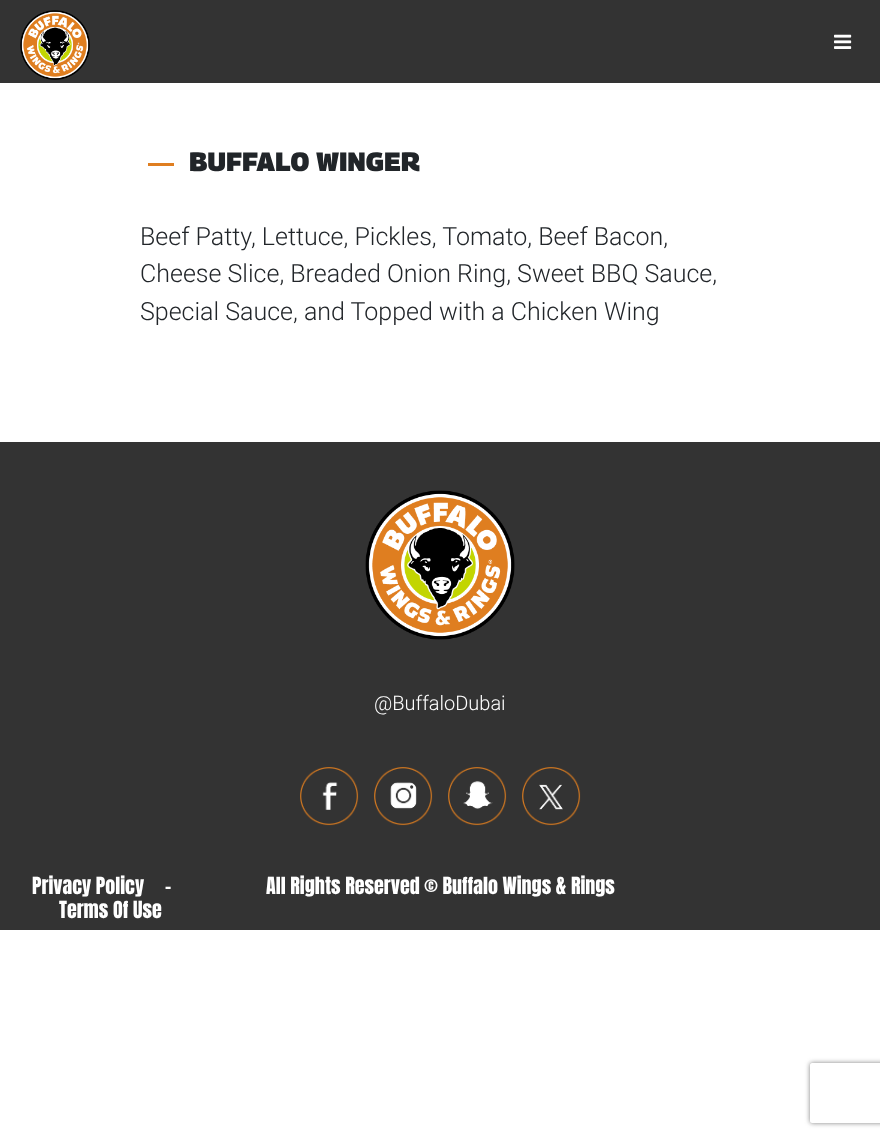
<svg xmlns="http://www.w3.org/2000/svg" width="880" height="1137">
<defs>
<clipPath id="clip1"><path d="M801 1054h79v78h-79zm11 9h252c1 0 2 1 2 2v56c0 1-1 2-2 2h-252c-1 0-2-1-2-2v-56c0-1 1-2 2-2z" clip-rule="evenodd"/></clipPath>
</defs>
<rect width="100%" height="100%" fill="#fff"/>
<rect width="880" height="83" fill="#333"/>
<image x="20" y="10" width="70" height="70" href="media/1.png"/>
<image x="834" y="34" width="18" height="15" href="media/2.png"/>
<rect x="148" y="163" width="26" height="3" fill="#df7e20"/>
<text x="189" y="171" style="font-family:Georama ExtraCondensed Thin;font-size:26.5px;font-weight:100;fill:#212529">BUFFALO WINGER</text>
<text x="140" y="245" style="font-family:Roboto;font-size:25px;font-weight:300;fill:#212529">Beef Patty, Lettuce, Pickles, Tomato, Beef Bacon,</text>
<text x="140" y="282" style="font-family:Roboto;font-size:25px;font-weight:300;fill:#212529">Cheese Slice, Breaded Onion Ring, Sweet BBQ Sauce,</text>
<text x="140" y="320" style="font-family:Roboto;font-size:25px;font-weight:300;fill:#212529">Special Sauce, and Topped with a Chicken Wing</text>
<rect y="442" width="880" height="488" fill="#333"/>
<image x="365" y="490" width="150" height="150" href="media/3.png"/>
<text x="374" y="710" style="font-family:Roboto;font-size:20px;font-weight:300;fill:#fff">@BuffaloDubai</text>
<image x="300" y="767" width="59" height="59" href="media/4.png"/>
<image x="374" y="767" width="59" height="59" href="media/5.png"/>
<image x="448" y="767" width="59" height="59" href="media/6.png"/>
<image x="522" y="767" width="59" height="59" href="media/7.png"/>
<text x="32" y="894" style="font-family:Anton;font-size:20px;fill:#fff">Privacy Policy</text>
<text x="165" y="894" style="font-family:Anton;font-size:20px;fill:#fff">-</text>
<text x="59" y="918" style="font-family:Anton;font-size:20px;fill:#fff">Terms Of Use</text>
<text x="266" y="894" style="font-family:Anton;font-size:20px;fill:#fff">All Rights Reserved © Buffalo Wings &amp; Rings</text>
<g clip-path="url(#clip1)">
<rect x="810" y="1063" width="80" height="60" rx="2" fill="#808080" filter="blur(2.5px)"/>
</g>
</svg>
